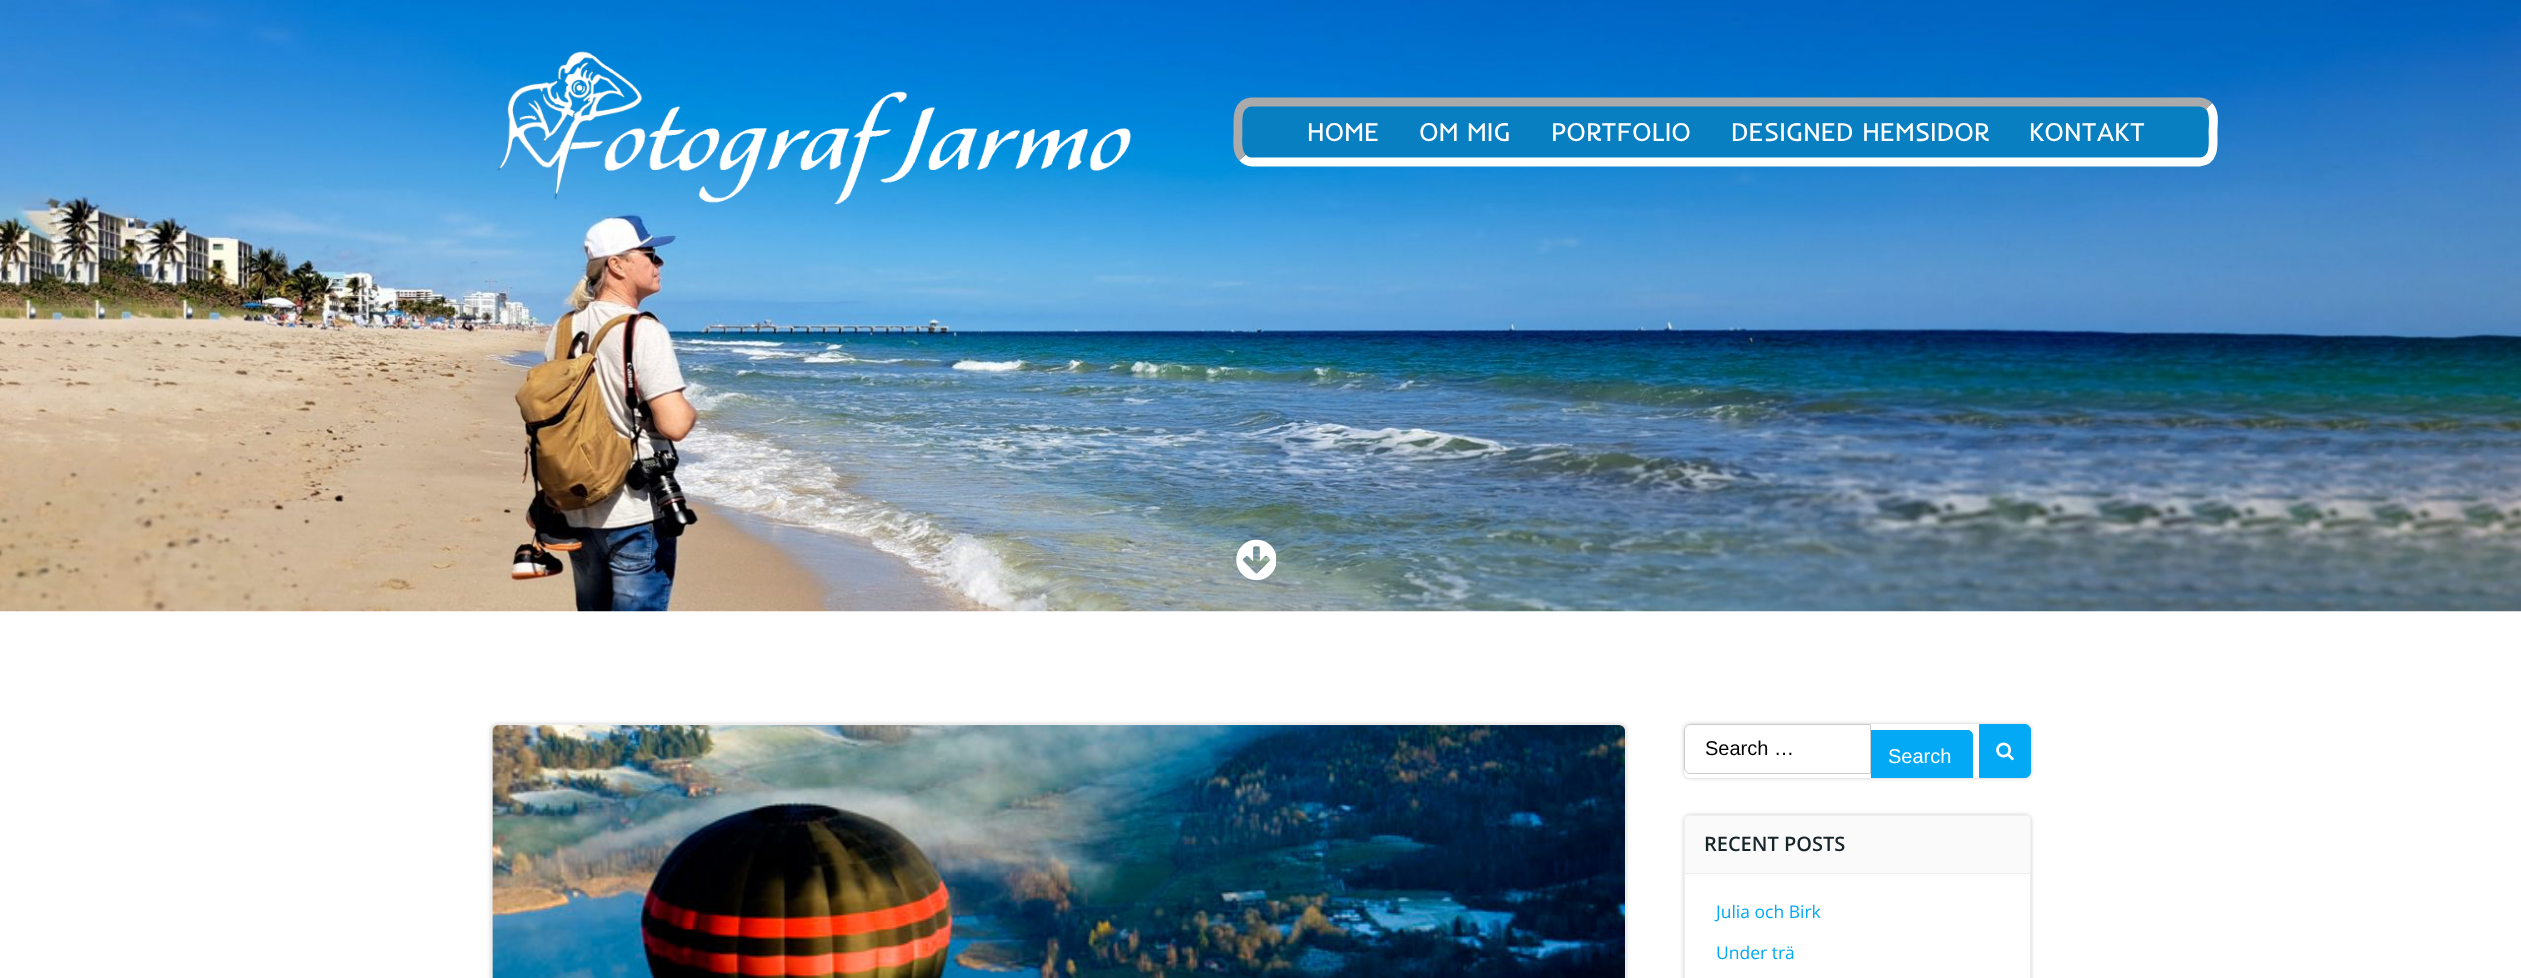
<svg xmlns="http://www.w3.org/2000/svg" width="2521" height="978">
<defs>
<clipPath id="clip1"><path d="M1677 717h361v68h-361zm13 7h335c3.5 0 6 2.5 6 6v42c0 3.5-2.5 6-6 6h-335c-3.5 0-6-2.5-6-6v-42c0-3.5 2.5-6 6-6z" clip-rule="evenodd"/></clipPath>
<clipPath id="clip2"><path d="M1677 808h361v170h-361zm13 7h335c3.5 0 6 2.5 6 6v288c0 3.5-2.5 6-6 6h-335c-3.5 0-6-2.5-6-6v-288c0-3.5 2.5-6 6-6z" clip-rule="evenodd"/></clipPath>
</defs>
<rect width="100%" height="100%" fill="#fff"/>
<image x="0" y="0" width="2521" height="612" href="media/1.png"/>
<image x="1236" y="539" width="40" height="42" href="media/2.png"/>
<image x="497" y="51" width="634" height="154" href="media/3.png"/>
<rect x="1234" y="98" width="984" height="68" rx="19" fill="#077fc0"/>
<path d="M2209 106c6.5 6.5 4 18 4 26c0 11 3 28-13 30h-947.5c-4 0-7.5-1.5-10-4.5" fill="none" stroke="#fff" stroke-width="8.8"/>
<path d="M1242.5 157.5c-6.5-6-4.5-17.5-4.5-25.5c0-11-2.5-28.5 13-30h948c3.5 0 7 1.5 10 4" fill="none" stroke="#aaa" stroke-width="8.8"/>
<text x="1307" y="141" style="font-family:Inder;font-size:26.25px;fill:#fff">HOME</text>
<text x="1419" y="141" style="font-family:Inder;font-size:26.25px;fill:#fff">OM MIG</text>
<text x="1551" y="141" style="font-family:Inder;font-size:26.25px;fill:#fff">PORTFOLIO</text>
<text x="1731" y="141" style="font-family:Inder;font-size:26.25px;fill:#fff">DESIGNED HEMSIDOR</text>
<text x="2029" y="141" style="font-family:Inder;font-size:26.25px;fill:#fff">KONTAKT</text>
<rect x="491" y="724" width="1135" height="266" rx="6" fill="#00000033" filter="blur(2px)"/>
<rect x="491.5" y="724.5" width="1134" height="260" rx="5.5" fill="none" stroke="#eee"/>
<image x="492" y="725" width="1133" height="253" href="media/4.png"/>
<g clip-path="url(#clip1)">
<rect x="1684" y="724" width="347" height="54" rx="6" fill="#00000033" filter="blur(2px)"/>
</g>
<path d="M1690 724.5h180.5v49h-180.5c-3 0-5.5-2.5-5.5-5.5v-38c0-3 2.5-5.5 5.5-5.5z" fill="#fff" stroke="#ccc"/>
<text x="1705" y="755" style="font-family:Liberation Sans;font-size:20px;fill:#000">Search …</text>
<path d="M1871 730h96c3.5 0 6 2.5 6 6v42h-102z" fill="#03a9f4"/>
<path d="M1871 730v48h1v-47h95c3 0 5 2 5 5v42h1v-42c0-3-3-6-6-6z" fill="#03a9f4"/>
<text x="1888" y="763" style="font-family:Liberation Sans;font-size:20px;fill:#fff">Search</text>
<path d="M1979.5 724.5h45.5c3 0 5.5 2.5 5.5 5.5v42c0 3-2.5 5.5-5.5 5.5h-45.5z" fill="#03a9f4" stroke="#03a9f4"/>
<image x="1996" y="742" width="18" height="19" href="media/5.png"/>
<g clip-path="url(#clip2)">
<rect x="1684" y="815" width="347" height="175" rx="6" fill="#00000033" filter="blur(2px)"/>
</g>
<rect x="1684.5" y="815.5" width="346" height="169" rx="5.5" fill="none" stroke="#eee"/>
<path d="M1690 816h335c3 0 5 2 5 5v52h-345v-52c0-3 2-5 5-5z" fill="#fafafa"/>
<rect x="1685" y="873" width="345" height="1" fill="#eee"/>
<text x="1704" y="851" style="font-family:Open Sans;font-size:20px;font-weight:600;fill:#17252a">RECENT POSTS</text>
<text x="1716" y="918" style="font-family:Open Sans;font-size:17.5px;fill:#03a9f4">Julia och Birk</text>
<text x="1716" y="959" style="font-family:Open Sans;font-size:17.5px;fill:#03a9f4">Under trä</text>
</svg>
